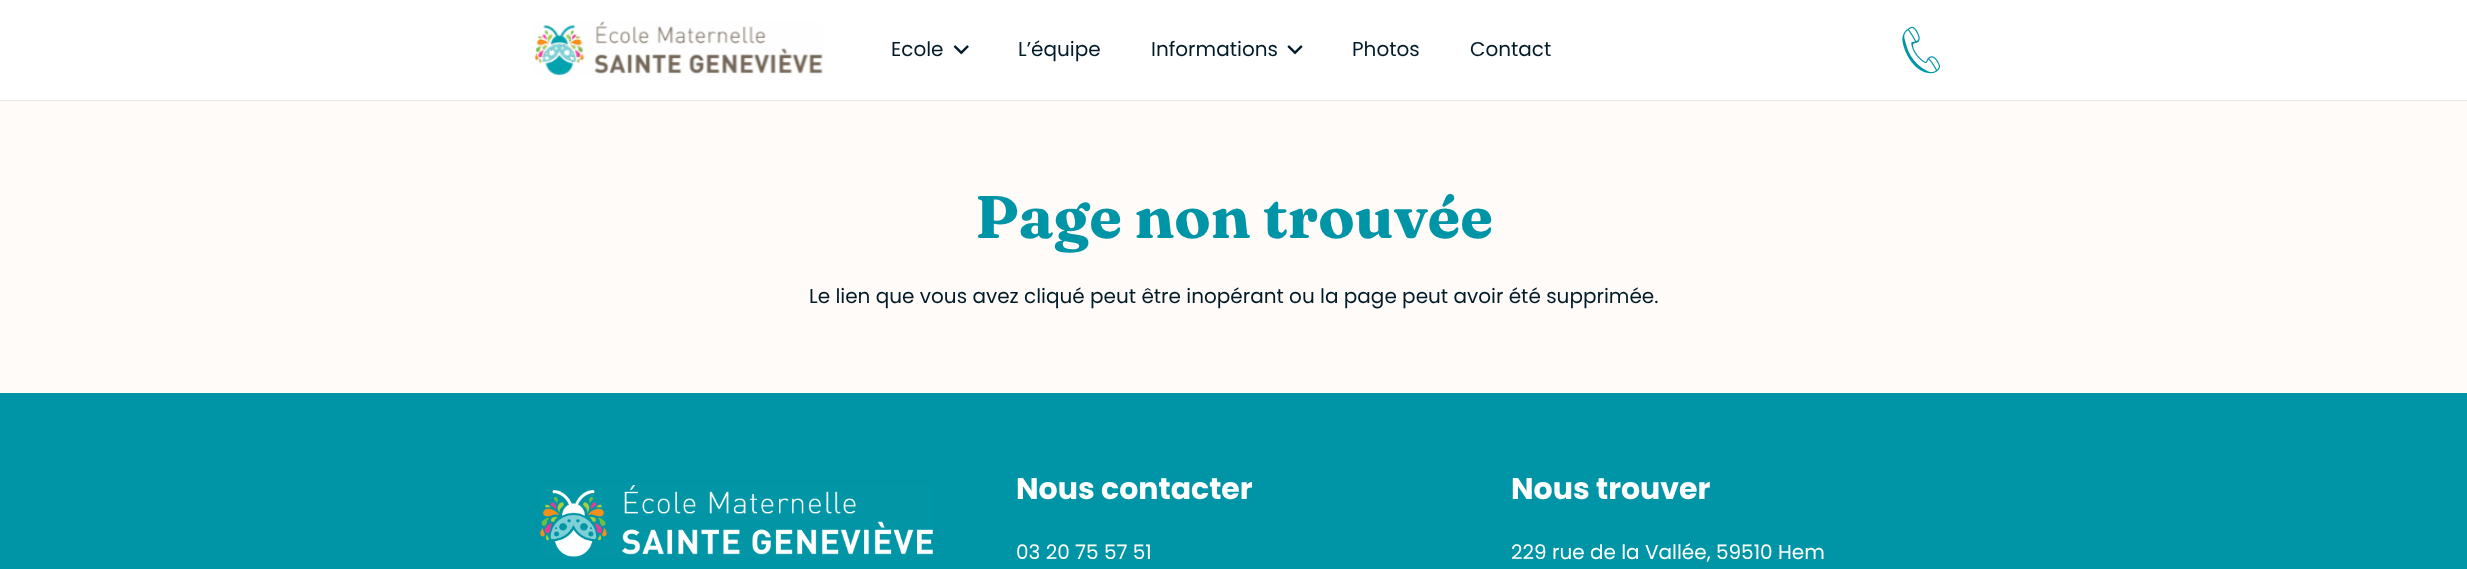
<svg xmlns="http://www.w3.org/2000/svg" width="2467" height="569">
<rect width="100%" height="100%" fill="#fffbf8"/>
<path d="M0 100v1h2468v-100v99z" fill="#ebe7e4"/>
<rect width="2467" height="100" fill="#fff"/>
<image x="534" y="21" width="289" height="55" href="media/1.png"/>
<text x="891" y="56" style="font-family:Poppins;font-size:20px;fill:#011b28">Ecole</text>
<image x="953" y="45" width="16" height="10" href="media/2.png"/>
<text x="1018" y="56" style="font-family:Poppins;font-size:20px;fill:#011b28">L’équipe</text>
<text x="1151" y="56" style="font-family:Poppins;font-size:20px;fill:#011b28">Informations</text>
<image x="1287" y="45" width="16" height="10" href="media/3.png"/>
<text x="1352" y="56" style="font-family:Poppins;font-size:20px;fill:#011b28">Photos</text>
<text x="1470" y="56" style="font-family:Poppins;font-size:20px;fill:#011b28">Contact</text>
<image x="1902" y="26" width="38" height="48" href="media/4.png"/>
<text x="975" y="238" style="font-family:Fraunces;font-size:60px;font-weight:bold;fill:#0095a6">Page non trouvée</text>
<text x="809" y="303" style="font-family:Poppins;font-size:20px;fill:#011b28">Le lien que vous avez cliqué peut être inopérant ou la page peut avoir été supprimée.</text>
<rect y="393" width="2467" height="176" fill="#0095a6"/>
<image x="540" y="485" width="393" height="72" href="media/5.png"/>
<text x="1016" y="499" style="font-family:Poppins;font-size:30px;font-weight:bold;fill:#fff">Nous contacter</text>
<text x="1016" y="559" style="font-family:Poppins;font-size:20px;fill:#fff">03 20 75 57 51</text>
<text x="1511" y="499" style="font-family:Poppins;font-size:30px;font-weight:bold;fill:#fff">Nous trouver</text>
<text x="1511" y="559" style="font-family:Poppins;font-size:20px;fill:#fff">229 rue de la Vallée, 59510 Hem</text>
</svg>
